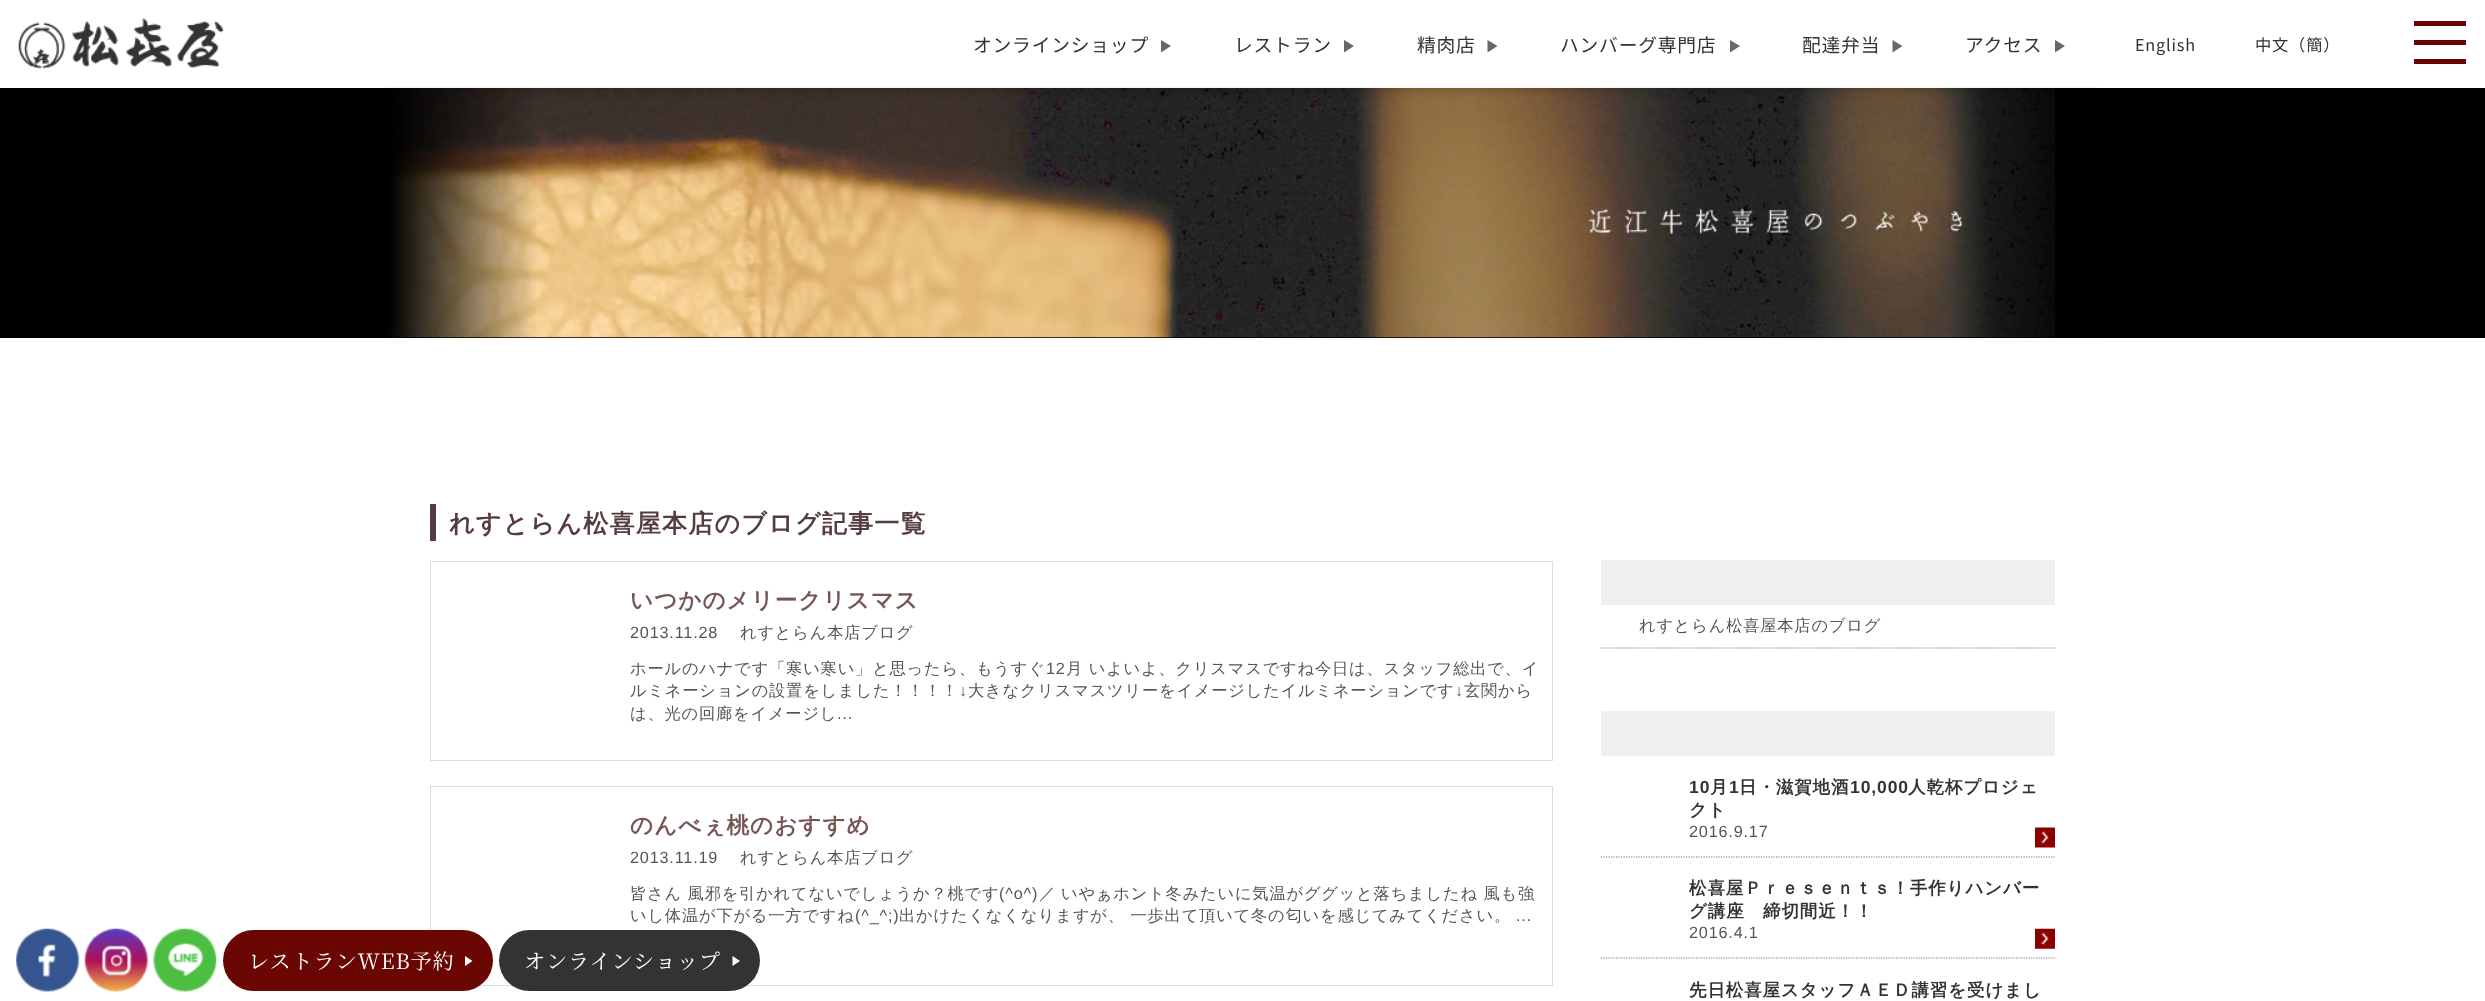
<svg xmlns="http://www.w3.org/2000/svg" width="2485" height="1001">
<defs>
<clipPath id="clip1"><path d="M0 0h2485v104h-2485zm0 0h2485v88h-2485z" clip-rule="evenodd"/></clipPath>
</defs>
<rect width="100%" height="100%" fill="#fff"/>
<rect y="88" width="2485" height="250" fill="#000"/>
<image x="386" y="87" width="1713" height="251" href="media/2.png"/>
<g clip-path="url(#clip1)">
<rect y="4" width="2485" height="87" fill="#00000029" filter="blur(4px)"/>
</g>
<rect y="87" width="2485" height="1" fill="#ffffffd6"/>
<image x="18" y="18" width="206" height="51" href="media/1.png"/>
<text x="973" y="52" style="font-family:Noto Sans JP;font-size:18.75px;letter-spacing:0.8px;fill:#333">オンラインショップ</text>
<path d="M1161 52.5v-12.5l10 6z" fill="#686868"/>
<text x="1234" y="52" style="font-family:Noto Sans JP;font-size:18.75px;letter-spacing:0.8px;fill:#333">レストラン</text>
<path d="M1344 52.5v-12.5l10 6z" fill="#686868"/>
<text x="1417" y="52" style="font-family:Noto Sans JP;font-size:18.75px;letter-spacing:0.8px;fill:#333">精肉店</text>
<path d="M1487.5 52.5v-12.5l10 6z" fill="#686868"/>
<text x="1560" y="52" style="font-family:Noto Sans JP;font-size:18.75px;letter-spacing:0.8px;fill:#333">ハンバーグ専門店</text>
<path d="M1730 52.5v-12.5l10 6z" fill="#686868"/>
<text x="1802" y="52" style="font-family:Noto Sans JP;font-size:18.75px;letter-spacing:0.8px;fill:#333">配達弁当</text>
<path d="M1892.5 52.5v-12.5l10 6z" fill="#686868"/>
<text x="1965" y="52" style="font-family:Noto Sans JP;font-size:18.75px;letter-spacing:0.8px;fill:#333">アクセス</text>
<path d="M2055 52.5v-12.5l10 6z" fill="#686868"/>
<text x="2135" y="51" style="font-family:Noto Sans JP;font-size:16.25px;letter-spacing:0.8px;fill:#333">English</text>
<text x="2255" y="51" style="font-family:Noto Sans JP;font-size:16.25px;letter-spacing:0.8px;fill:#333">中文（簡）</text>
<rect x="2414" y="21" width="52" height="5" fill="#660600"/>
<rect x="2414" y="40" width="52" height="5" fill="#660600"/>
<rect x="2414" y="59" width="52" height="5" fill="#660600"/>
<rect x="430" y="504" width="6" height="37" fill="#563d3d"/>
<text x="449" y="532" style="font-family:WenQuanYi Zen Hei;font-size:25px;font-weight:bold;letter-spacing:1.25px;fill:#553d3d">れすとらん松喜屋本店のブログ記事一覧</text>
<rect x="430.5" y="561.5" width="1122" height="199" fill="none" stroke="#ddd"/>
<text x="630" y="608" style="font-family:WenQuanYi Zen Hei;font-size:22.5px;font-weight:bold;letter-spacing:1.1px;fill:#755">いつかのメリークリスマス</text>
<text x="630" y="638" style="font-family:Liberation Sans;font-size:16.25px;letter-spacing:0.8px;fill:#555">2013.11.28</text>
<text x="740" y="638" style="font-family:WenQuanYi Zen Hei;font-size:16.25px;font-weight:500;letter-spacing:0.8px;fill:#555">れすとらん本店ブログ</text>
<text x="630" y="674" style="font-family:WenQuanYi Zen Hei;font-size:16.25px;font-weight:500;letter-spacing:0.8px;fill:#555">ホールのハナです「寒い寒い」と思ったら、もうすぐ</text>
<text x="1046" y="674" style="font-family:Liberation Sans;font-size:16.25px;letter-spacing:0.8px;fill:#555">12</text>
<text x="1066" y="674" style="font-family:WenQuanYi Zen Hei;font-size:16.25px;font-weight:500;letter-spacing:0.8px;fill:#555">月 いよいよ、クリスマスですね今日は、スタッフ総出で、イ</text>
<text x="630" y="696" style="font-family:WenQuanYi Zen Hei;font-size:16.25px;font-weight:500;letter-spacing:0.8px;fill:#555">ルミネーションの設置をしました！！！！</text>
<text x="959" y="696" style="font-family:Liberation Sans;font-size:16.25px;letter-spacing:0.8px;fill:#555">↓</text>
<text x="968" y="696" style="font-family:WenQuanYi Zen Hei;font-size:16.25px;font-weight:500;letter-spacing:0.8px;fill:#555">大きなクリスマスツリーをイメージしたイルミネーションです</text>
<text x="1455" y="696" style="font-family:Liberation Sans;font-size:16.25px;letter-spacing:0.8px;fill:#555">↓</text>
<text x="1464" y="696" style="font-family:WenQuanYi Zen Hei;font-size:16.25px;font-weight:500;letter-spacing:0.8px;fill:#555">玄関から</text>
<text x="630" y="719" style="font-family:WenQuanYi Zen Hei;font-size:16.25px;font-weight:500;letter-spacing:0.8px;fill:#555">は、光の回廊をイメージし</text>
<text x="837" y="719" style="font-family:Liberation Sans;font-size:16.25px;letter-spacing:0.8px;fill:#555">...</text>
<rect x="430.5" y="786.5" width="1122" height="199" fill="none" stroke="#ddd"/>
<text x="630" y="833" style="font-family:WenQuanYi Zen Hei;font-size:22.5px;font-weight:bold;letter-spacing:1.1px;fill:#755">のんべぇ桃のおすすめ</text>
<text x="630" y="863" style="font-family:Liberation Sans;font-size:16.25px;letter-spacing:0.8px;fill:#555">2013.11.19</text>
<text x="740" y="863" style="font-family:WenQuanYi Zen Hei;font-size:16.25px;font-weight:500;letter-spacing:0.8px;fill:#555">れすとらん本店ブログ</text>
<text x="630" y="899" style="font-family:WenQuanYi Zen Hei;font-size:16.25px;font-weight:500;letter-spacing:0.8px;fill:#555">皆さん 風邪を引かれてないでしょうか？桃です</text>
<text x="999" y="899" style="font-family:Liberation Sans;font-size:16.25px;letter-spacing:0.8px;fill:#555">(^o^)</text>
<text x="1039" y="899" style="font-family:WenQuanYi Zen Hei;font-size:16.25px;font-weight:500;letter-spacing:0.8px;fill:#555">／</text>
<text x="1061" y="899" style="font-family:WenQuanYi Zen Hei;font-size:16.25px;font-weight:500;letter-spacing:0.8px;fill:#555">いやぁホント冬みたいに気温がググッと落ちましたね 風も強</text>
<text x="630" y="921" style="font-family:WenQuanYi Zen Hei;font-size:16.25px;font-weight:500;letter-spacing:0.8px;fill:#555">いし体温が下がる一方ですね</text>
<text x="855" y="921" style="font-family:Liberation Sans;font-size:16.25px;letter-spacing:0.8px;fill:#555">(^_^;)</text>
<text x="899" y="921" style="font-family:WenQuanYi Zen Hei;font-size:16.25px;font-weight:500;letter-spacing:0.8px;fill:#555">出かけたくなくなりますが、 一歩出て頂いて冬の匂いを感じてみてください。</text>
<text x="1516" y="921" style="font-family:Liberation Sans;font-size:16.25px;letter-spacing:0.8px;fill:#555">...</text>
<rect x="1601" y="560" width="454" height="45" fill="#efefef"/>
<path d="M1601 648h454" fill="none" stroke="#777" stroke-width="1.2" stroke-dasharray="1.25 1.25"/>
<text x="1639" y="631" style="font-family:WenQuanYi Zen Hei;font-size:16.25px;font-weight:500;letter-spacing:0.8px;fill:#555">れすとらん松喜屋本店のブログ</text>
<rect x="1601" y="711" width="454" height="45" fill="#efefef"/>
<image x="2035" y="827" width="20" height="21" href="media/3.png"/>
<path d="M1601 857h454" fill="none" stroke="#777" stroke-width="1.2" stroke-dasharray="1.25 1.25"/>
<text x="1689" y="793" style="font-family:Liberation Sans;font-size:17.5px;font-weight:bold;letter-spacing:0.9px;fill:#333">10</text>
<text x="1710" y="793" style="font-family:WenQuanYi Zen Hei;font-size:17.5px;font-weight:bold;letter-spacing:0.9px;fill:#333">月</text>
<text x="1729" y="793" style="font-family:Liberation Sans;font-size:17.5px;font-weight:bold;letter-spacing:0.9px;fill:#333">1</text>
<text x="1739" y="793" style="font-family:WenQuanYi Zen Hei;font-size:17.5px;font-weight:bold;letter-spacing:0.9px;fill:#333">日・滋賀地酒</text>
<text x="1850" y="793" style="font-family:Liberation Sans;font-size:17.5px;font-weight:bold;letter-spacing:0.9px;fill:#333">10,000</text>
<text x="1908" y="793" style="font-family:WenQuanYi Zen Hei;font-size:17.5px;font-weight:bold;letter-spacing:0.9px;fill:#333">人乾杯プロジェ</text>
<text x="1689" y="816" style="font-family:WenQuanYi Zen Hei;font-size:17.5px;font-weight:bold;letter-spacing:0.9px;fill:#333">クト</text>
<text x="1689" y="837" style="font-family:Liberation Sans;font-size:16.25px;letter-spacing:0.8px;fill:#555">2016.9.17</text>
<image x="2035" y="928" width="20" height="21" href="media/4.png"/>
<path d="M1601 958h454" fill="none" stroke="#777" stroke-width="1.2" stroke-dasharray="1.25 1.25"/>
<text x="1689" y="894" style="font-family:WenQuanYi Zen Hei;font-size:17.5px;font-weight:bold;letter-spacing:0.9px;fill:#333">松喜屋Ｐｒｅｓｅｎｔｓ！手作りハンバー</text>
<text x="1689" y="917" style="font-family:WenQuanYi Zen Hei;font-size:17.5px;font-weight:bold;letter-spacing:0.9px;fill:#333">グ講座　締切間近！！</text>
<text x="1689" y="938" style="font-family:Liberation Sans;font-size:16.25px;letter-spacing:0.8px;fill:#555">2016.4.1</text>
<text x="1689" y="996" style="font-family:WenQuanYi Zen Hei;font-size:17.5px;font-weight:bold;letter-spacing:0.9px;fill:#333">先日松喜屋スタッフＡＥＤ講習を受けまし</text>
<image x="16" y="928" width="64" height="64" href="media/5.png"/>
<image x="84" y="928" width="65" height="64" href="media/6.png"/>
<image x="153" y="928" width="64" height="64" href="media/7.png"/>
<rect x="223" y="930" width="270" height="61" rx="30.5" fill="#6a0703"/>
<text x="248" y="969" style="font-family:Noto Serif JP;font-size:21.25px;font-weight:200;letter-spacing:0.8px;fill:#fff">レストランWEB予約</text>
<path d="M465 966v-10l7.5 5z" fill="#fff"/>
<rect x="499" y="930" width="261" height="61" rx="30.5" fill="#333"/>
<text x="524" y="969" style="font-family:Noto Serif JP;font-size:21.25px;font-weight:200;letter-spacing:0.8px;fill:#fff">オンラインショップ</text>
<path d="M732.5 966v-10l7.5 5z" fill="#fff"/>
</svg>
